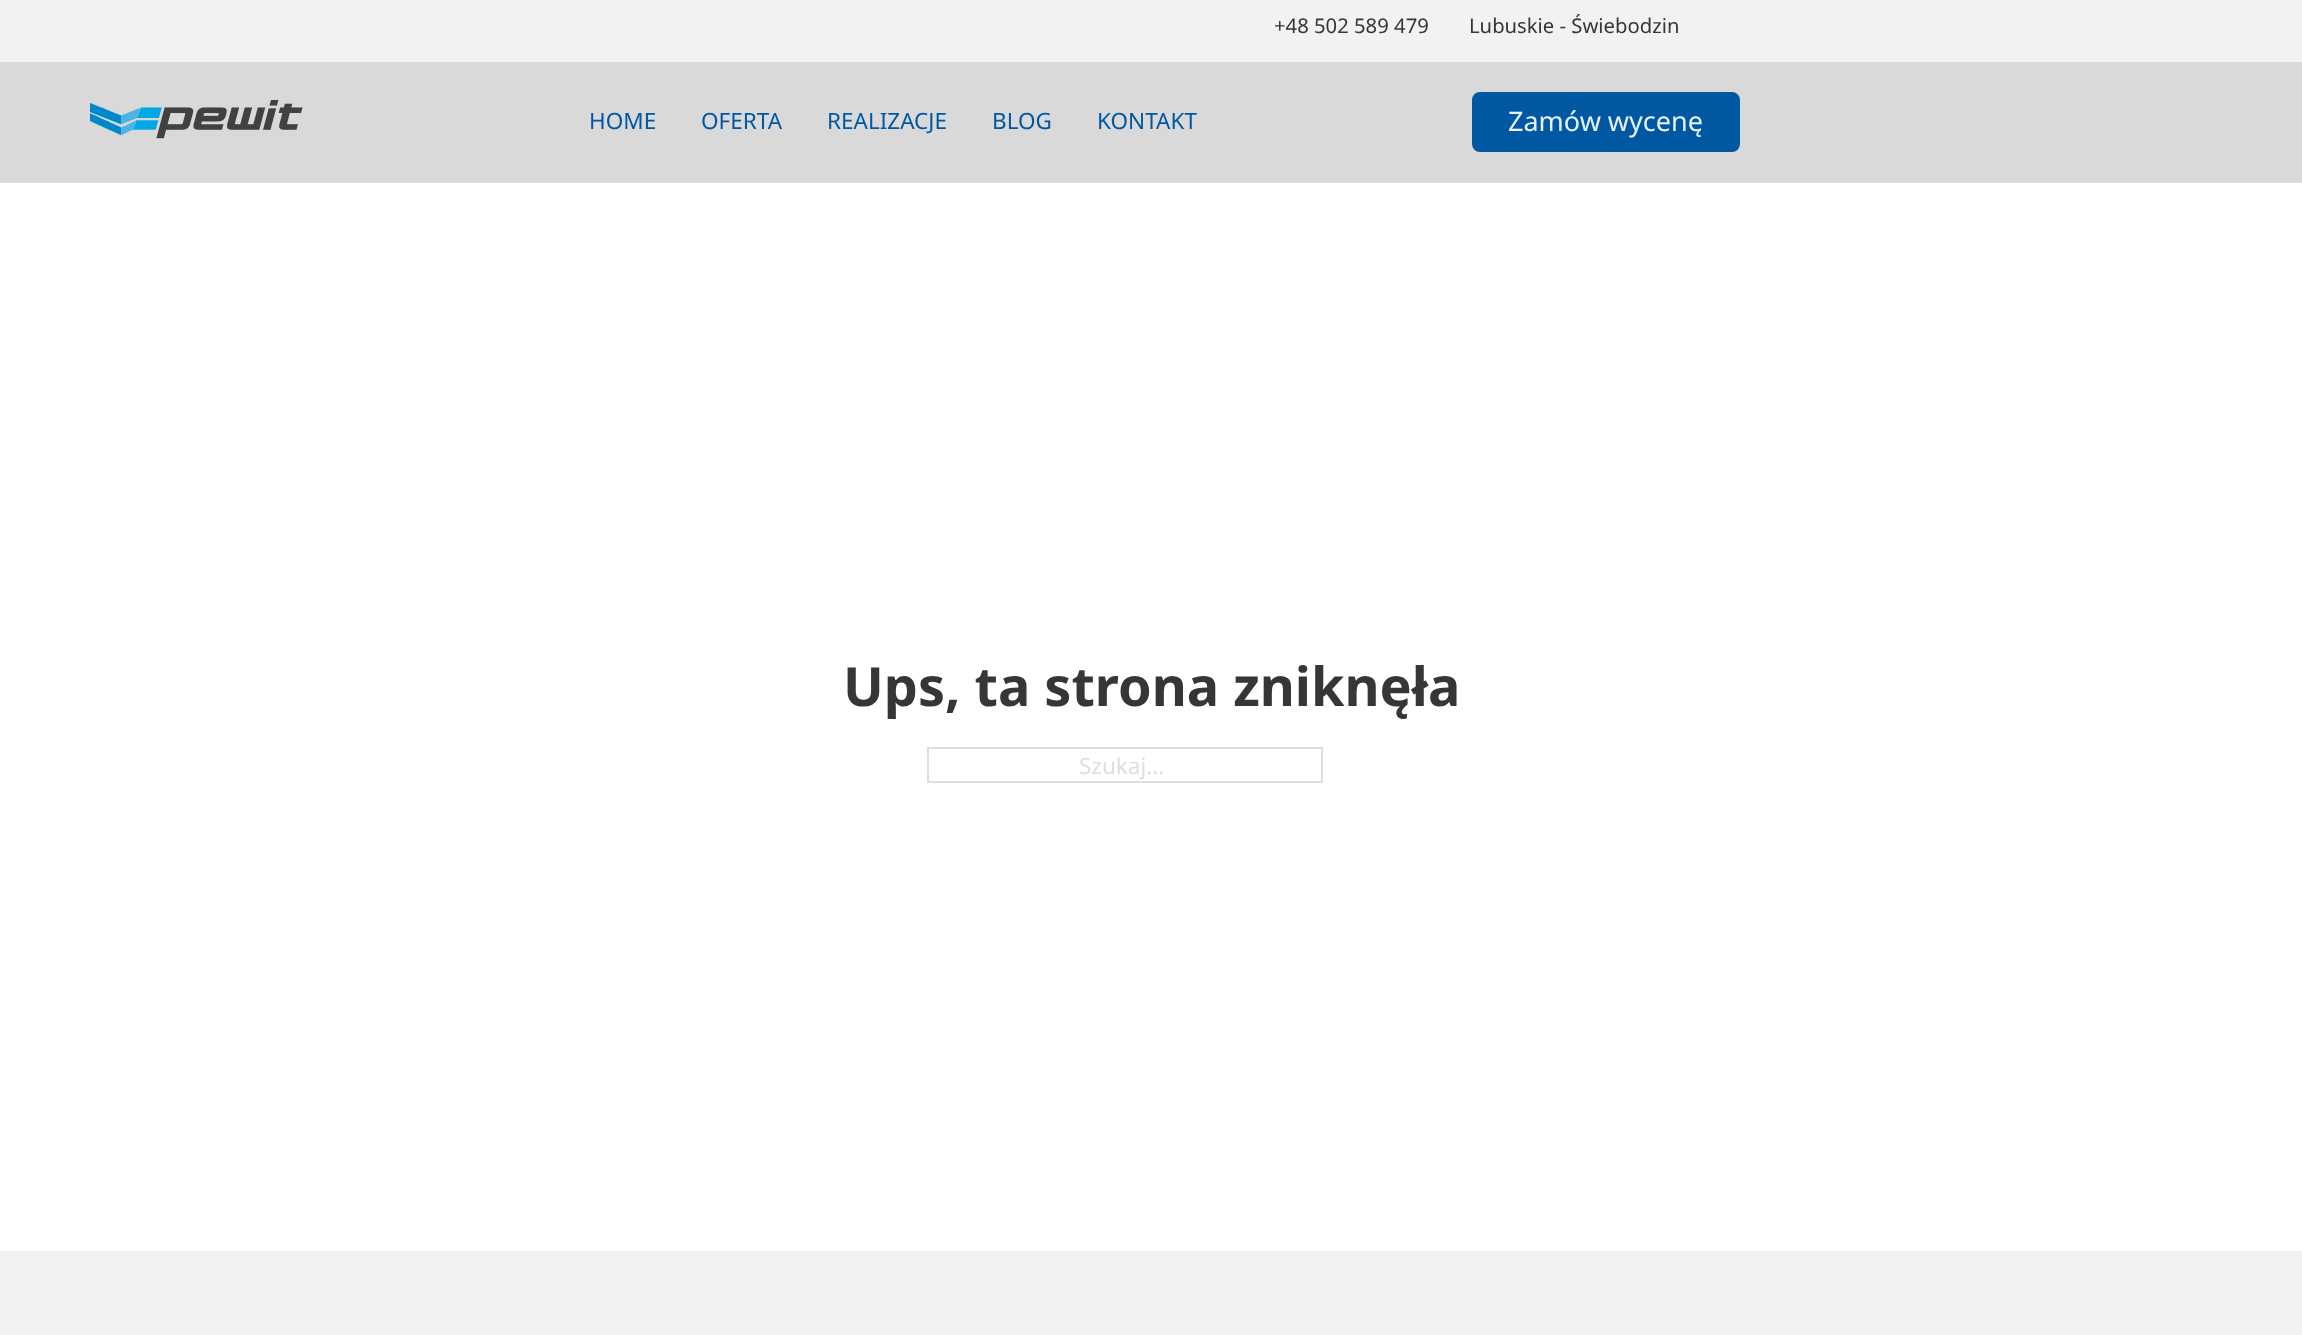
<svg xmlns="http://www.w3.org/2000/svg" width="2302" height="1335">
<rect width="100%" height="100%" fill="#fff"/>
<rect width="2302" height="62" fill="#f2f2f2"/>
<text x="1274" y="33" style="font-family:Noto Sans;font-size:20.25px;fill:#363636">+48 502 589 479</text>
<text x="1469" y="33" style="font-family:Noto Sans;font-size:20.25px;fill:#363636">Lubuskie - Świebodzin</text>
<rect y="62" width="2302" height="120" fill="#d9d9d9"/>
<rect y="182" width="2302" height="1" fill="#e1e1e1"/>
<image x="90" y="100" width="213" height="39" href="media/1.png"/>
<text x="589" y="129" style="font-family:Noto Sans;font-size:22.5px;fill:#0058a3">HOME</text>
<text x="701" y="129" style="font-family:Noto Sans;font-size:22.5px;fill:#0058a3">OFERTA</text>
<text x="827" y="129" style="font-family:Noto Sans;font-size:22.5px;fill:#0058a3">REALIZACJE</text>
<text x="992" y="129" style="font-family:Noto Sans;font-size:22.5px;fill:#0058a3">BLOG</text>
<text x="1097" y="129" style="font-family:Noto Sans;font-size:22.5px;fill:#0058a3">KONTAKT</text>
<rect x="1473.5" y="93.5" width="265" height="57" rx="6.5" fill="#0058a3" stroke="#0058a3" stroke-width="3"/>
<text x="1508" y="131" style="font-family:Noto Sans;font-size:27px;fill:#e6f3ff">Zamów wycenę</text>
<text x="843" y="706" style="font-family:Noto Sans;font-size:54px;font-weight:bold;fill:#363636">Ups, ta strona zniknęła</text>
<rect x="928" y="748" width="394" height="34" fill="none" stroke="#dddedf" stroke-width="2"/>
<text x="1079" y="774" style="font-family:Noto Sans;font-size:22.5px;fill:#dddedf">Szukaj...</text>
<rect y="1251" width="2302" height="84" fill="#f2f2f2"/>
</svg>
